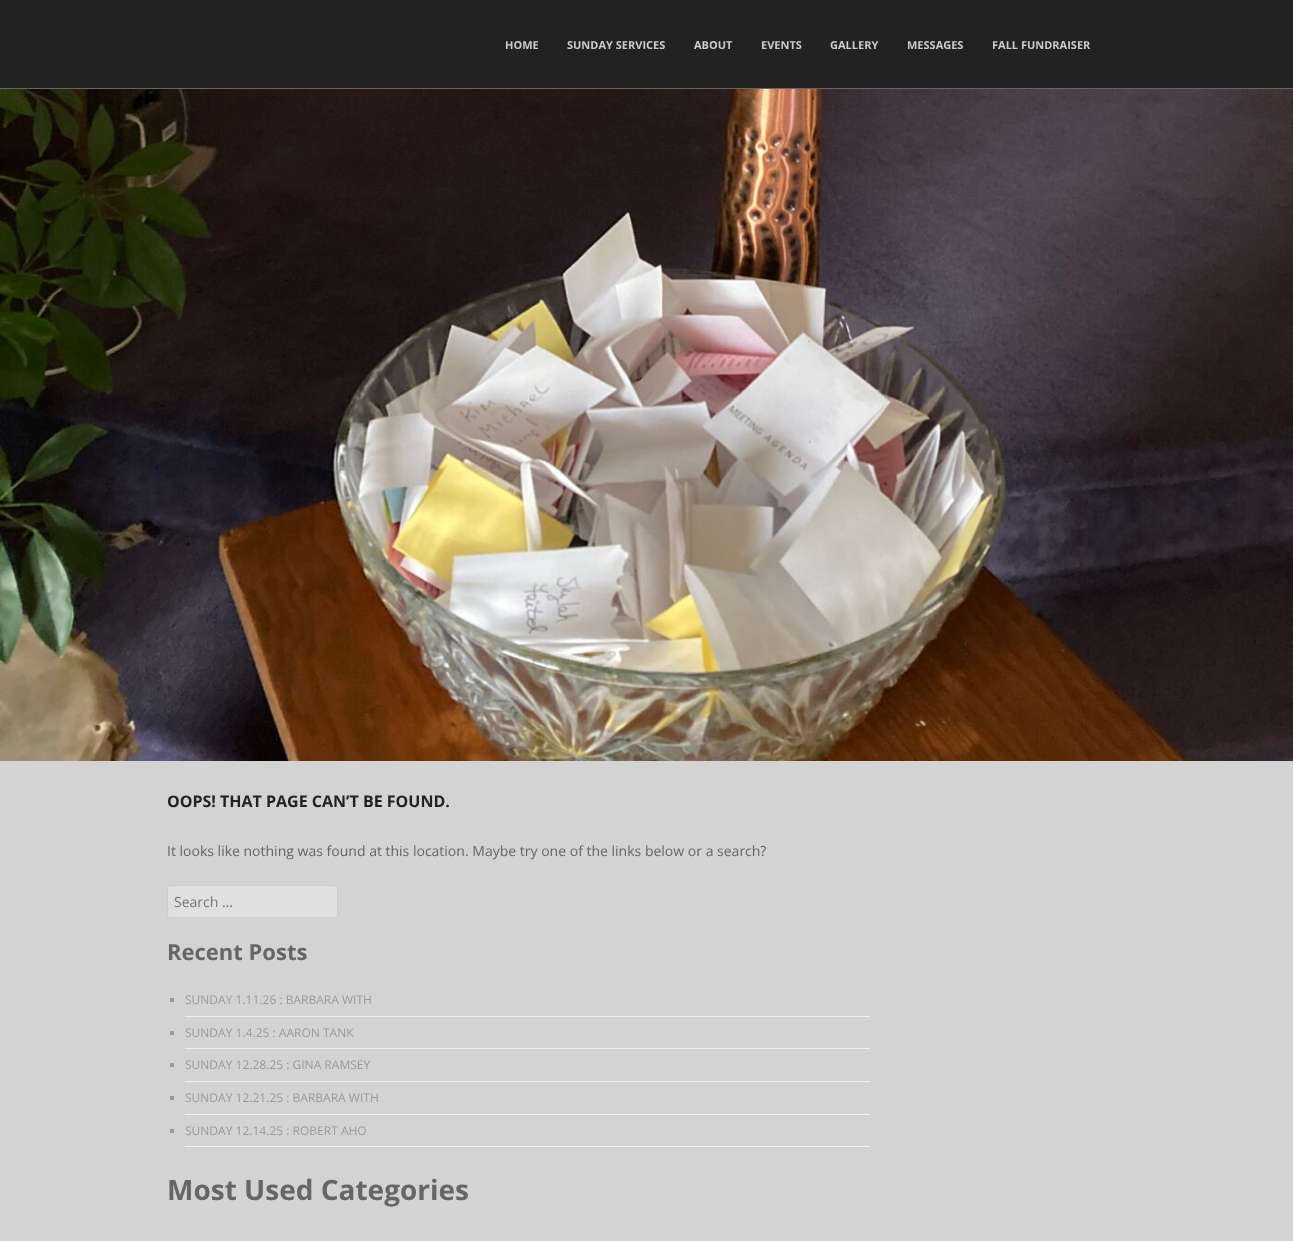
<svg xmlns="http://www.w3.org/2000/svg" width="1293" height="1241">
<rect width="100%" height="100%" fill="#d3d3d3"/>
<rect width="1293" height="88" fill="#222"/>
<rect y="88" width="1293" height="1" fill="#666"/>
<text x="505" y="49" style="font-family:Open Sans;font-size:11px;font-weight:bold;fill:#ccc">HOME</text>
<text x="567" y="49" style="font-family:Open Sans;font-size:11px;font-weight:bold;fill:#ccc">SUNDAY SERVICES</text>
<text x="694" y="49" style="font-family:Open Sans;font-size:11px;font-weight:bold;fill:#ccc">ABOUT</text>
<text x="761" y="49" style="font-family:Open Sans;font-size:11px;font-weight:bold;fill:#ccc">EVENTS</text>
<text x="830" y="49" style="font-family:Open Sans;font-size:11px;font-weight:bold;fill:#ccc">GALLERY</text>
<text x="907" y="49" style="font-family:Open Sans;font-size:11px;font-weight:bold;fill:#ccc">MESSAGES</text>
<text x="992" y="49" style="font-family:Open Sans;font-size:11px;font-weight:bold;fill:#ccc">FALL FUNDRAISER</text>
<image x="0" y="89" width="1293" height="672" href="media/1.png"/>
<text x="167" y="807" style="font-family:Open Sans;font-size:16px;font-weight:bold;fill:#222">OOPS! THAT PAGE CAN’T BE FOUND.</text>
<text x="167" y="856" style="font-family:Open Sans;font-size:14px;fill:#666">It looks like nothing was found at this location. Maybe try one of the links below or a search?</text>
<rect x="167.5" y="885.5" width="170" height="32" rx="2.5" fill="#e0e0e0" stroke="#ccc"/>
<text x="174" y="907" style="font-family:Open Sans;font-size:14px;fill:#757575">Search …</text>
<text x="167" y="960" style="font-family:Open Sans;font-size:22px;font-weight:bold;fill:#666">Recent Posts</text>
<rect x="185" y="1016" width="685" height="1" fill="#efefef"/>
<rect x="170" y="998" width="4" height="4" fill="#999"/>
<text x="185" y="1004" style="font-family:Open Sans;font-size:12px;fill:#999">SUNDAY 1.11.26 : BARBARA WITH</text>
<rect x="185" y="1048" width="685" height="1" fill="#efefef"/>
<rect x="170" y="1031" width="4" height="4" fill="#999"/>
<text x="185" y="1037" style="font-family:Open Sans;font-size:12px;fill:#999">SUNDAY 1.4.25 : AARON TANK</text>
<rect x="185" y="1081" width="685" height="1" fill="#efefef"/>
<rect x="170" y="1063" width="4" height="4" fill="#999"/>
<text x="185" y="1069" style="font-family:Open Sans;font-size:12px;fill:#999">SUNDAY 12.28.25 : GINA RAMSEY</text>
<rect x="185" y="1114" width="685" height="1" fill="#efefef"/>
<rect x="170" y="1096" width="4" height="4" fill="#999"/>
<text x="185" y="1102" style="font-family:Open Sans;font-size:12px;fill:#999">SUNDAY 12.21.25 : BARBARA WITH</text>
<rect x="185" y="1146" width="685" height="1" fill="#efefef"/>
<rect x="170" y="1129" width="4" height="4" fill="#999"/>
<text x="185" y="1135" style="font-family:Open Sans;font-size:12px;fill:#999">SUNDAY 12.14.25 : ROBERT AHO</text>
<text x="167" y="1200" style="font-family:Open Sans;font-size:28px;font-weight:bold;fill:#666">Most Used Categories</text>
</svg>
